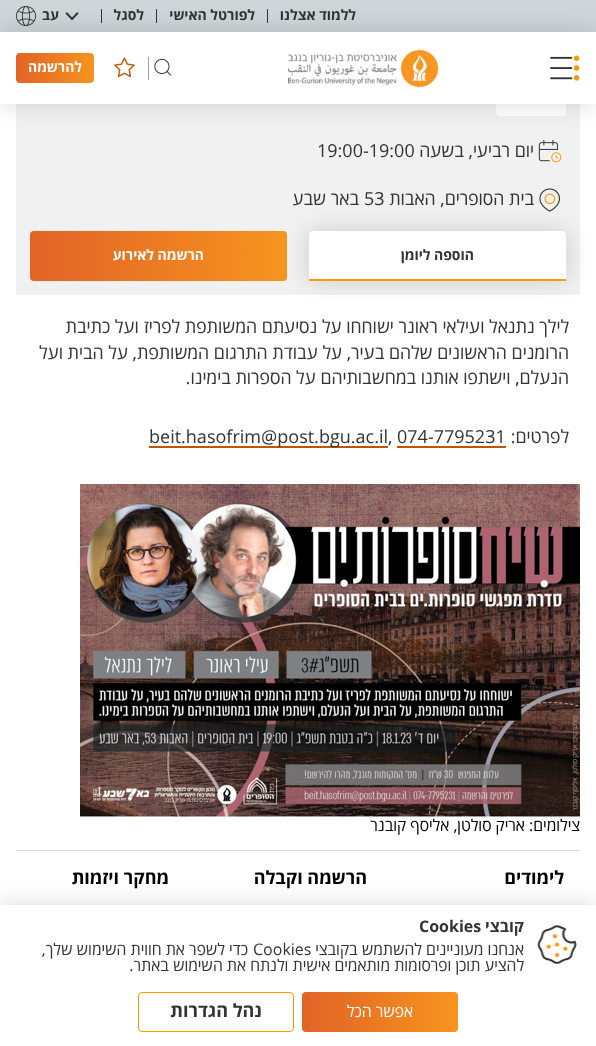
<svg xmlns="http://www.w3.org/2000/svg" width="596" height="1046">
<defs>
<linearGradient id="g1" gradientUnits="userSpaceOnUse" x1="16" y1="68" x2="94" y2="68"><stop offset="0" stop-color="#e16327"/><stop offset="1" stop-color="#f7941e"/></linearGradient>
<linearGradient id="g2" gradientUnits="userSpaceOnUse" x1="30" y1="256" x2="287" y2="256"><stop offset="0" stop-color="#e16327"/><stop offset="1" stop-color="#f7941e"/></linearGradient>
<linearGradient id="g3" gradientUnits="userSpaceOnUse" x1="302" y1="1012" x2="458" y2="1012"><stop offset="0" stop-color="#e16327"/><stop offset="1" stop-color="#f7941e"/></linearGradient>
</defs>
<rect width="100%" height="100%" fill="#fff"/>
<rect width="596" height="32" fill="#cfd6da"/>
<rect x="267" y="9" width="1" height="14" fill="#333"/>
<text x="356" y="20" style="font-family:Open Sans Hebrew;font-size:14px;font-weight:bold;direction:rtl;fill:#333">ללמוד אצלנו</text>
<rect x="156" y="9" width="1" height="14" fill="#333"/>
<text x="255" y="20" style="font-family:Open Sans Hebrew;font-size:14px;font-weight:bold;direction:rtl;fill:#333">לפורטל האישי</text>
<rect x="101" y="9" width="1" height="14" fill="#333"/>
<text x="144" y="20" style="font-family:Open Sans Hebrew;font-size:14px;font-weight:bold;direction:rtl;fill:#333">לסגל</text>
<image x="65" y="12" width="14" height="9" href="media/1.png"/>
<text x="59" y="20" style="font-family:Open Sans Hebrew;font-size:14px;font-weight:bold;direction:rtl;fill:#333">עב</text>
<image x="16" y="6" width="20" height="20" href="media/2.png"/>
<rect x="16" y="104" width="564" height="191" fill="#f1f1f1"/>
<rect x="496" y="46" width="70" height="70" rx="4" fill="#fff"/>
<image x="538" y="139" width="24" height="24" href="media/7.png"/>
<rect y="32" width="596" height="72" fill="#00000026" filter="blur(12px)"/>
<rect y="32" width="596" height="72" fill="#fff"/>
<image x="550" y="55" width="30" height="26" href="media/3.png"/>
<image x="288" y="49" width="151" height="38" href="media/4.png"/>
<image x="154" y="58" width="18" height="18" href="media/5.png"/>
<rect x="148" y="57" width="1" height="23" fill="#9b9da0"/>
<image x="114" y="57" width="21" height="21" href="media/6.png"/>
<rect x="16" y="53" width="78" height="30" rx="4" fill="url(#g1)"/>
<rect x="15" y="52" width="80" height="32" rx="3" fill="none" stroke="#fff" stroke-width="2"/>
<text x="82" y="72" style="font-family:Open Sans Hebrew;font-size:14px;font-weight:bold;direction:rtl;fill:#fff">להרשמה</text>
<text x="534" y="157" style="font-family:Open Sans Hebrew;font-size:18px;direction:rtl;fill:#333">יום רביעי, בשעה</text>
<text x="317" y="157" style="font-family:Open Sans Hebrew;font-size:18px;fill:#333">19:00-19:00</text>
<image x="539" y="188" width="21" height="24" href="media/8.png"/>
<text x="534" y="205" style="font-family:Open Sans Hebrew;font-size:18px;direction:rtl;fill:#333">בית הסופרים, האבות</text>
<text x="364" y="205" style="font-family:Open Sans Hebrew;font-size:18px;fill:#333">53</text>
<text x="359" y="205" style="font-family:Open Sans Hebrew;font-size:18px;direction:rtl;fill:#333">באר שבע</text>
<rect x="309" y="231" width="257" height="50" rx="4" fill="#00000026" filter="blur(12px)"/>
<path d="M313 231h249c2 0 4 2 4 4v46h-257v-46c0-2 2-4 4-4z" fill="#fff"/>
<text x="474" y="260" style="font-family:Open Sans Hebrew;font-size:14px;font-weight:bold;direction:rtl;fill:#333">הוספה ליומן</text>
<rect x="309" y="279" width="257" height="2" fill="#f90"/>
<rect x="30" y="231" width="257" height="50" rx="4" fill="url(#g2)"/>
<rect x="29" y="230" width="259" height="53" rx="3" fill="none" stroke="#f1f1f1" stroke-width="2"/>
<text x="204" y="260" style="font-family:Open Sans Hebrew;font-size:14px;font-weight:bold;direction:rtl;fill:#fff">הרשמה לאירוע</text>
<text x="569" y="333" style="font-family:Open Sans Hebrew;font-size:18px;direction:rtl;fill:#333">לילך נתנאל ועילאי ראונר ישוחחו על נסיעתם המשותפת לפריז ועל כתיבת</text>
<text x="569" y="359" style="font-family:Open Sans Hebrew;font-size:18px;direction:rtl;fill:#333">הרומנים הראשונים שלהם בעיר, על עבודת התרגום המשותפת, על הבית ועל</text>
<text x="569" y="384" style="font-family:Open Sans Hebrew;font-size:18px;direction:rtl;fill:#333">הנעלם, וישתפו אותנו במחשבותיהם על הספרות בימינו.</text>
<text x="569" y="443" style="font-family:Open Sans Hebrew;font-size:18px;direction:rtl;fill:#333">לפרטים:</text>
<rect x="397" y="446" width="109" height="2" fill="#c05602"/>
<text x="397" y="443" style="font-family:Open Sans Hebrew;font-size:18px;fill:#333">074-7795231</text>
<text x="388" y="443" style="font-family:Open Sans Hebrew;font-size:18px;fill:#333">,</text>
<rect x="149" y="446" width="239" height="2" fill="#c05602"/>
<text x="149" y="443" style="font-family:Open Sans Hebrew;font-size:18px;fill:#333">beit.hasofrim@post.bgu.ac.il</text>
<image x="80" y="484" width="500" height="333" href="media/9.png"/>
<text x="580" y="831" style="font-family:Open Sans Hebrew;font-size:16px;direction:rtl;fill:#000">צילומים: אריק סולטן, אליסף קובנר</text>
<rect x="16" y="850" width="564" height="1" fill="#cfd6da"/>
<text x="564" y="884" style="font-family:Open Sans Hebrew;font-size:18px;font-weight:bold;direction:rtl;fill:#000">לימודים</text>
<text x="367" y="884" style="font-family:Open Sans Hebrew;font-size:18px;font-weight:bold;direction:rtl;fill:#000">הרשמה וקבלה</text>
<text x="169" y="884" style="font-family:Open Sans Hebrew;font-size:18px;font-weight:bold;direction:rtl;fill:#000">מחקר ויזמות</text>
<rect y="905" width="596" height="141" fill="#00000026" filter="blur(12px)"/>
<rect y="905" width="596" height="141" fill="#fff"/>
<image x="537" y="925" width="40" height="39" href="media/10.png"/>
<text x="524" y="932" style="font-family:Open Sans Hebrew;font-size:16px;font-weight:bold;direction:rtl;fill:#333">קובצי</text>
<text x="419" y="932" style="font-family:Open Sans Hebrew;font-size:16px;font-weight:bold;fill:#333">Cookies</text>
<text x="524" y="955" style="font-family:Open Sans Hebrew;font-size:16px;direction:rtl;fill:#333">אנחנו מעוניינים להשתמש בקובצי</text>
<text x="253" y="955" style="font-family:Open Sans Hebrew;font-size:16px;fill:#333">Cookies</text>
<text x="248" y="955" style="font-family:Open Sans Hebrew;font-size:16px;direction:rtl;fill:#333">כדי לשפר את חווית השימוש שלך,</text>
<text x="524" y="971" style="font-family:Open Sans Hebrew;font-size:16px;direction:rtl;fill:#333">להציע תוכן ופרסומות מותאמים אישית ולנתח את השימוש באתר.</text>
<rect x="302" y="992" width="156" height="40" rx="4" fill="url(#g3)"/>
<rect x="301" y="991" width="158" height="42" rx="3" fill="none" stroke="#fff" stroke-width="2"/>
<text x="413" y="1017" style="font-family:Open Sans Hebrew;font-size:16px;direction:rtl;fill:#fff">אפשר הכל</text>
<rect x="138.5" y="992.5" width="155" height="39" rx="3.5" fill="none" stroke="#f90"/>
<text x="262" y="1017" style="font-family:Open Sans Hebrew;font-size:18px;font-weight:bold;direction:rtl;fill:#333">נהל הגדרות</text>
</svg>
